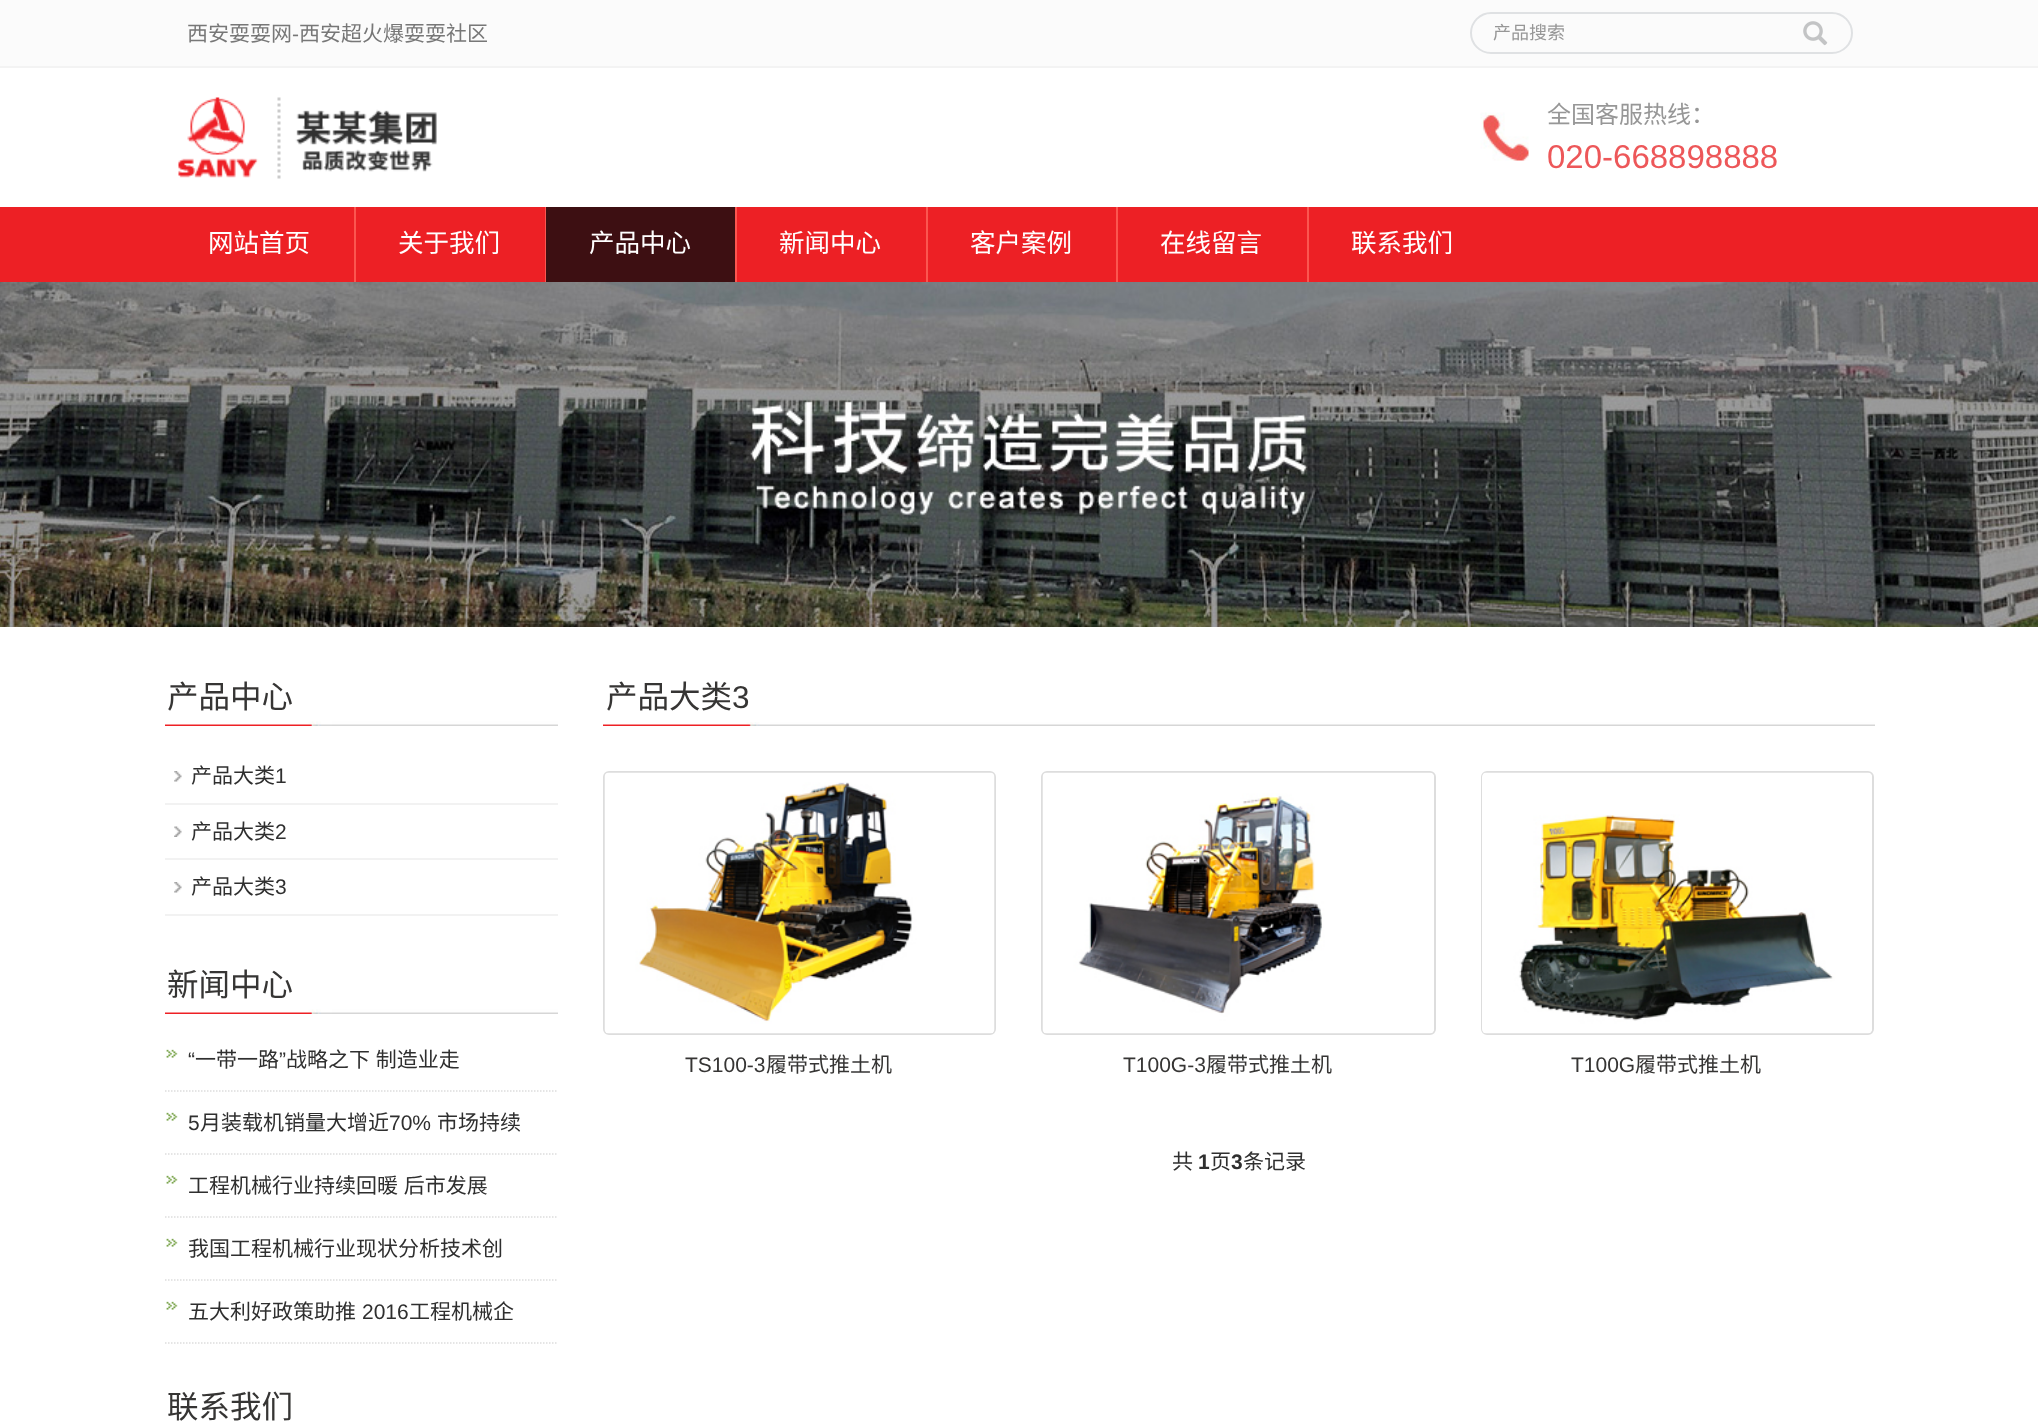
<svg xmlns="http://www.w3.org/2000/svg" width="2038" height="1424">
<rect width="100%" height="100%" fill="#fff"/>
<rect width="2038" height="66" fill="#fbfbfb"/>
<rect y="66" width="2038" height="2" fill="#f3f3f3"/>
<text x="187" y="41" style="font-family:Noto Sans CJK SC;font-size:21px;fill:#777">西安耍耍网</text>
<text x="292" y="41" style="font-family:Liberation Sans;font-size:21px;fill:#777">-</text>
<text x="299" y="41" style="font-family:Noto Sans CJK SC;font-size:21px;fill:#777">西安超火爆耍耍社区</text>
<rect x="1471" y="13" width="381" height="40" rx="20" fill="none" stroke="#dfe1e3" stroke-width="2"/>
<text x="1493" y="39" style="font-family:Noto Sans CJK SC;font-size:18px;fill:#979797">产品搜索</text>
<image x="1803" y="21" width="25" height="25" href="media/1.png"/>
<image x="178" y="97" width="259" height="82" href="media/2.png"/>
<image x="1480" y="112" width="49" height="49" href="media/3.png"/>
<text x="1547" y="123" style="font-family:Noto Sans CJK SC;font-size:24px;fill:#979797">全国客服热线：</text>
<text x="1547" y="168" style="font-family:Liberation Sans;font-size:33px;fill:#ed5759">020-668898888</text>
<rect y="207" width="2038" height="75" fill="#ed2025"/>
<rect x="354" y="207" width="2" height="75" fill="#fb5650"/>
<text x="208" y="252" style="font-family:Noto Sans CJK SC;font-size:25.5px;fill:#fff">网站首页</text>
<rect x="545" y="207" width="1" height="75" fill="#fb5650"/>
<text x="398" y="252" style="font-family:Noto Sans CJK SC;font-size:25.5px;fill:#fff">关于我们</text>
<rect x="735" y="207" width="2" height="75" fill="#fb5650"/>
<rect x="546" y="207" width="189" height="75" fill="#3d0f12"/>
<text x="589" y="252" style="font-family:Noto Sans CJK SC;font-size:25.5px;fill:#fff">产品中心</text>
<rect x="926" y="207" width="2" height="75" fill="#fb5650"/>
<text x="779" y="252" style="font-family:Noto Sans CJK SC;font-size:25.5px;fill:#fff">新闻中心</text>
<rect x="1116" y="207" width="2" height="75" fill="#fb5650"/>
<text x="970" y="252" style="font-family:Noto Sans CJK SC;font-size:25.5px;fill:#fff">客户案例</text>
<rect x="1307" y="207" width="2" height="75" fill="#fb5650"/>
<text x="1160" y="252" style="font-family:Noto Sans CJK SC;font-size:25.5px;fill:#fff">在线留言</text>
<text x="1351" y="252" style="font-family:Noto Sans CJK SC;font-size:25.5px;fill:#fff">联系我们</text>
<image x="0" y="282" width="2038" height="345" href="media/4.png"/>
<image x="165" y="721" width="393" height="5" href="media/5.png"/>
<text x="167" y="708" style="font-family:Noto Sans CJK SC;font-size:31.5px;fill:#363534">产品中心</text>
<image x="174" y="771" width="8" height="11" href="media/6.png"/>
<rect x="165" y="803" width="393" height="2" fill="#f2f2f2"/>
<text x="191" y="783" style="font-family:Noto Sans CJK SC;font-size:21px;fill:#2f2f2f">产品大类</text>
<text x="275" y="783" style="font-family:Liberation Sans;font-size:21px;fill:#2f2f2f">1</text>
<image x="174" y="826" width="8" height="11" href="media/7.png"/>
<rect x="165" y="858" width="393" height="2" fill="#f2f2f2"/>
<text x="191" y="839" style="font-family:Noto Sans CJK SC;font-size:21px;fill:#2f2f2f">产品大类</text>
<text x="275" y="839" style="font-family:Liberation Sans;font-size:21px;fill:#2f2f2f">2</text>
<image x="174" y="882" width="8" height="11" href="media/6.png"/>
<rect x="165" y="914" width="393" height="2" fill="#f2f2f2"/>
<text x="191" y="894" style="font-family:Noto Sans CJK SC;font-size:21px;fill:#2f2f2f">产品大类</text>
<text x="275" y="894" style="font-family:Liberation Sans;font-size:21px;fill:#2f2f2f">3</text>
<image x="165" y="1009" width="393" height="5" href="media/5.png"/>
<text x="167" y="996" style="font-family:Noto Sans CJK SC;font-size:31.5px;fill:#363534">新闻中心</text>
<image x="166" y="1049" width="12" height="9" href="media/8.png"/>
<path d="M165 1091h393" fill="none" stroke="#ddd" stroke-width="1.5" stroke-dasharray="1.5 1.5"/>
<text x="188" y="1067" style="font-family:Liberation Sans;font-size:21px;fill:#2f2f2f">“</text>
<text x="195" y="1067" style="font-family:Noto Sans CJK SC;font-size:21px;fill:#2f2f2f">一带一路</text>
<text x="279" y="1067" style="font-family:Liberation Sans;font-size:21px;fill:#2f2f2f">”</text>
<text x="286" y="1067" word-spacing="1" style="font-family:Noto Sans CJK SC;font-size:21px;fill:#2f2f2f">战略之下 制造业走</text>
<image x="166" y="1112" width="12" height="9" href="media/8.png"/>
<path d="M165 1154h393" fill="none" stroke="#ddd" stroke-width="1.5" stroke-dasharray="1.5 1.5"/>
<text x="188" y="1130" style="font-family:Liberation Sans;font-size:21px;fill:#2f2f2f">5</text>
<text x="200" y="1130" style="font-family:Noto Sans CJK SC;font-size:21px;fill:#2f2f2f">月装载机销量大增近</text>
<text x="389" y="1130" style="font-family:Liberation Sans;font-size:21px;fill:#2f2f2f">70%</text>
<text x="437" y="1130" style="font-family:Noto Sans CJK SC;font-size:21px;fill:#2f2f2f">市场持续</text>
<image x="166" y="1175" width="12" height="9" href="media/8.png"/>
<path d="M165 1217h393" fill="none" stroke="#ddd" stroke-width="1.5" stroke-dasharray="1.5 1.5"/>
<text x="188" y="1193" word-spacing="1" style="font-family:Noto Sans CJK SC;font-size:21px;fill:#2f2f2f">工程机械行业持续回暖 后市发展</text>
<image x="166" y="1238" width="12" height="9" href="media/8.png"/>
<path d="M165 1280h393" fill="none" stroke="#ddd" stroke-width="1.5" stroke-dasharray="1.5 1.5"/>
<text x="188" y="1256" style="font-family:Noto Sans CJK SC;font-size:21px;fill:#2f2f2f">我国工程机械行业现状分析技术创</text>
<image x="166" y="1301" width="12" height="9" href="media/8.png"/>
<path d="M165 1343h393" fill="none" stroke="#ddd" stroke-width="1.5" stroke-dasharray="1.5 1.5"/>
<text x="188" y="1319" style="font-family:Noto Sans CJK SC;font-size:21px;fill:#2f2f2f">五大利好政策助推</text>
<text x="362" y="1319" style="font-family:Liberation Sans;font-size:21px;fill:#2f2f2f">2016</text>
<text x="409" y="1319" style="font-family:Noto Sans CJK SC;font-size:21px;fill:#2f2f2f">工程机械企</text>
<text x="167" y="1418" style="font-family:Noto Sans CJK SC;font-size:31.5px;fill:#363534">联系我们</text>
<image x="603" y="722" width="1272" height="4" href="media/9.png"/>
<text x="606" y="708" style="font-family:Noto Sans CJK SC;font-size:31.5px;fill:#363534">产品大类</text>
<text x="732" y="708" style="font-family:Liberation Sans;font-size:31.5px;fill:#363534">3</text>
<rect x="604" y="772" width="391" height="262" rx="5" fill="none" stroke="#ddd" stroke-width="2"/>
<image x="604" y="772" width="391" height="262" href="media/10.png"/>
<text x="685" y="1072" style="font-family:Liberation Sans;font-size:21px;fill:#363534">TS100-3</text>
<text x="766" y="1072" style="font-family:Noto Sans CJK SC;font-size:21px;fill:#363534">履带式推土机</text>
<rect x="1042" y="772" width="393" height="262" rx="5" fill="none" stroke="#ddd" stroke-width="2"/>
<image x="1042" y="772" width="392" height="262" href="media/11.png"/>
<text x="1123" y="1072" style="font-family:Liberation Sans;font-size:21px;fill:#363534">T100G-3</text>
<text x="1206" y="1072" style="font-family:Noto Sans CJK SC;font-size:21px;fill:#363534">履带式推土机</text>
<rect x="1482" y="772" width="391" height="262" rx="5" fill="none" stroke="#ddd" stroke-width="2"/>
<image x="1482" y="772" width="390" height="262" href="media/12.png"/>
<text x="1571" y="1072" style="font-family:Liberation Sans;font-size:21px;fill:#363534">T100G</text>
<text x="1635" y="1072" style="font-family:Noto Sans CJK SC;font-size:21px;fill:#363534">履带式推土机</text>
<text x="1172" y="1169" style="font-family:Noto Sans CJK SC;font-size:21px;fill:#2f2f2f">共</text>
<text x="1198" y="1169" style="font-family:Liberation Sans;font-size:21px;font-weight:bold;fill:#2f2f2f">1</text>
<text x="1210" y="1169" style="font-family:Noto Sans CJK SC;font-size:21px;fill:#2f2f2f">页</text>
<text x="1231" y="1169" style="font-family:Liberation Sans;font-size:21px;font-weight:bold;fill:#2f2f2f">3</text>
<text x="1243" y="1169" style="font-family:Noto Sans CJK SC;font-size:21px;fill:#2f2f2f">条记录</text>
</svg>
